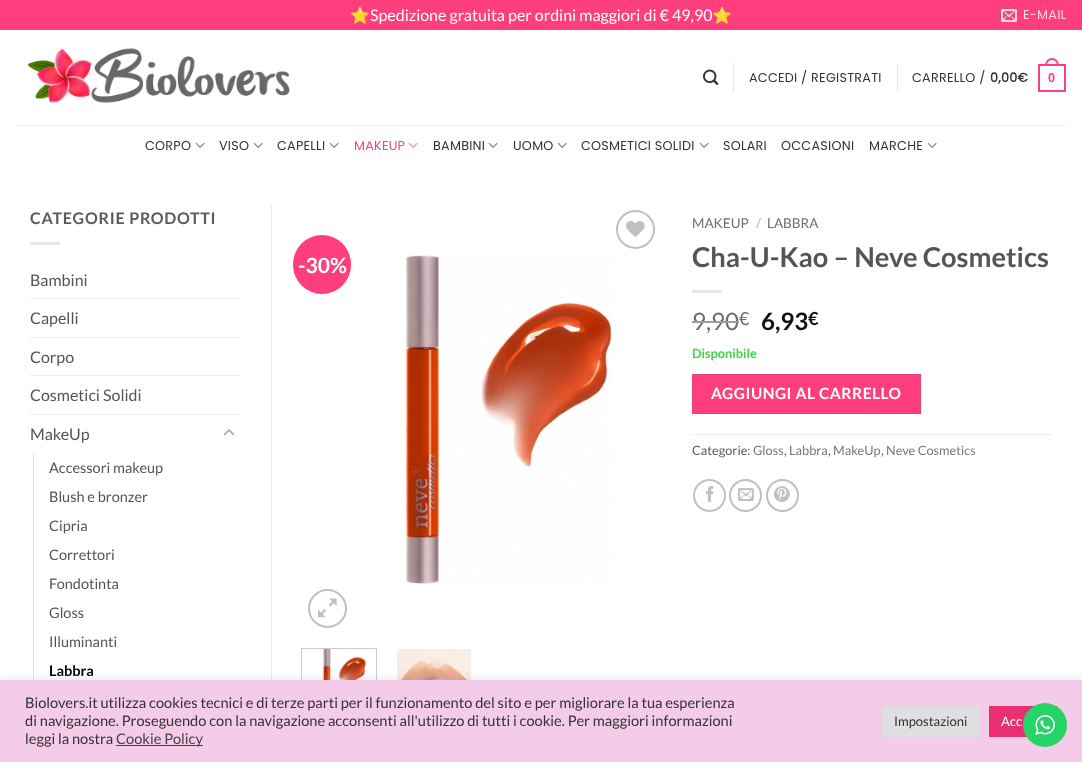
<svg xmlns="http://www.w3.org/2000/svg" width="1082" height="762">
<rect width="100%" height="100%" fill="#fff"/>
<rect width="1082" height="30" fill="#ff3f7d"/>
<text x="350" y="21" style="font-family:Noto Color Emoji;font-size:16px;fill:#fff">⭐️</text>
<text x="370" y="21" style="font-family:Lato;font-size:16px;fill:#fff">Spedizione gratuita per ordini maggiori di € 49,90</text>
<text x="712" y="21" style="font-family:Noto Color Emoji;font-size:16px;fill:#fff">⭐️</text>
<image x="1001" y="9" width="16" height="13" href="media/1.png"/>
<text x="1023" y="19" style="font-family:Poppins;font-size:12.75px;letter-spacing:0.25px;fill:#ffd9e5">E-MAIL</text>
<image x="27" y="48" width="263" height="55" href="media/2.png"/>
<image x="703" y="69" width="16" height="16" href="media/3.png"/>
<rect x="733" y="63" width="1" height="30" fill="#e6e6e6"/>
<text x="749" y="82" style="font-family:Poppins;font-size:12.75px;letter-spacing:0.25px;fill:#333">ACCEDI / REGISTRATI</text>
<rect x="897" y="63" width="1" height="30" fill="#e6e6e6"/>
<text x="912" y="82" style="font-family:Poppins;font-size:12.75px;letter-spacing:0.25px;fill:#333">CARRELLO /</text>
<text x="990" y="82" style="font-family:Poppins;font-size:12.75px;font-weight:bold;letter-spacing:0.25px;fill:#333">0,00€</text>
<rect x="1039" y="65" width="26" height="26" fill="none" stroke="#ff3f7d" stroke-width="2"/>
<path d="M1052 58c4.5 0 7 4 7 8h-14c0-4 2.5-8 7-8zm0 2c3.5 0 5 3 5 6h-10c0-3 1.5-6 5-6z" fill="#ff3f7d" fill-rule="evenodd"/>
<text x="1048" y="82" style="font-family:Liberation Sans;font-size:12.75px;font-weight:bold;letter-spacing:0.25px;fill:#ff3f7d">0</text>
<rect x="16" y="125" width="1050" height="1" fill="#efefef"/>
<text x="145" y="150" style="font-family:Poppins;font-size:12.75px;letter-spacing:0.25px;fill:#333">CORPO</text>
<image x="195" y="142" width="10" height="6" href="media/4.png"/>
<text x="219" y="150" style="font-family:Poppins;font-size:12.75px;letter-spacing:0.25px;fill:#333">VISO</text>
<image x="253" y="142" width="10" height="6" href="media/4.png"/>
<text x="277" y="150" style="font-family:Poppins;font-size:12.75px;letter-spacing:0.25px;fill:#333">CAPELLI</text>
<image x="329" y="142" width="10" height="6" href="media/4.png"/>
<text x="354" y="150" style="font-family:Poppins;font-size:12.75px;letter-spacing:0.25px;fill:#ff3f7d">MAKEUP</text>
<image x="408" y="142" width="10" height="6" href="media/5.png"/>
<text x="433" y="150" style="font-family:Poppins;font-size:12.75px;letter-spacing:0.25px;fill:#333">BAMBINI</text>
<image x="488" y="142" width="10" height="6" href="media/4.png"/>
<text x="513" y="150" style="font-family:Poppins;font-size:12.75px;letter-spacing:0.25px;fill:#333">UOMO</text>
<image x="557" y="142" width="10" height="6" href="media/4.png"/>
<text x="581" y="150" style="font-family:Poppins;font-size:12.75px;letter-spacing:0.25px;fill:#333">COSMETICI SOLIDI</text>
<image x="699" y="142" width="10" height="6" href="media/4.png"/>
<text x="723" y="150" style="font-family:Poppins;font-size:12.75px;letter-spacing:0.25px;fill:#333">SOLARI</text>
<text x="781" y="150" style="font-family:Poppins;font-size:12.75px;letter-spacing:0.25px;fill:#333">OCCASIONI</text>
<text x="869" y="150" style="font-family:Poppins;font-size:12.75px;letter-spacing:0.25px;fill:#333">MARCHE</text>
<image x="927" y="142" width="10" height="6" href="media/4.png"/>
<text x="30" y="224" style="font-family:Lato;font-size:16px;font-weight:bold;letter-spacing:0.75px;fill:#5b5b5b">CATEGORIE PRODOTTI</text>
<rect x="30" y="242" width="30" height="3" fill="#e6e6e6"/>
<text x="30" y="286" style="font-family:Lato;font-size:16px;fill:#555">Bambini</text>
<rect x="30" y="298" width="211" height="1" fill="#ececec"/>
<text x="30" y="324" style="font-family:Lato;font-size:16px;fill:#555">Capelli</text>
<rect x="30" y="337" width="211" height="1" fill="#ececec"/>
<text x="30" y="363" style="font-family:Lato;font-size:16px;fill:#555">Corpo</text>
<rect x="30" y="375" width="211" height="1" fill="#ececec"/>
<text x="30" y="401" style="font-family:Lato;font-size:16px;fill:#555">Cosmetici Solidi</text>
<rect x="30" y="414" width="211" height="1" fill="#ececec"/>
<text x="30" y="440" style="font-family:Lato;font-size:16px;fill:#555">MakeUp</text>
<image x="223" y="429" width="12" height="7" href="media/6.png"/>
<rect x="33" y="453" width="1" height="227" fill="#ddd"/>
<text x="49" y="473" style="font-family:Lato;font-size:14.5px;fill:#555">Accessori makeup</text>
<text x="49" y="502" style="font-family:Lato;font-size:14.5px;fill:#555">Blush e bronzer</text>
<text x="49" y="531" style="font-family:Lato;font-size:14.5px;fill:#555">Cipria</text>
<text x="49" y="560" style="font-family:Lato;font-size:14.5px;fill:#555">Correttori</text>
<text x="49" y="589" style="font-family:Lato;font-size:14.5px;fill:#555">Fondotinta</text>
<text x="49" y="618" style="font-family:Lato;font-size:14.5px;fill:#555">Gloss</text>
<text x="49" y="647" style="font-family:Lato;font-size:14.5px;fill:#555">Illuminanti</text>
<text x="49" y="676" style="font-family:Lato;font-size:14.5px;font-weight:bold;fill:#000">Labbra</text>
<rect x="271" y="205" width="1" height="475" fill="#ececec"/>
<circle cx="635.5" cy="229.5" r="18.5" fill="none" stroke="#c0c0c0" stroke-width="2"/>
<image x="626" y="221" width="19" height="16" href="media/7.png"/>
<rect x="293" y="235" width="58" height="59" rx="29" fill="#ff3f7d"/>
<text x="298" y="273" style="font-family:Lato;font-size:21px;font-weight:bold;fill:#fff">-30%</text>
<image x="405" y="255" width="208" height="330" href="media/8.png"/>
<circle cx="327.5" cy="608.5" r="18.5" fill="none" stroke="#c0c0c0" stroke-width="2"/>
<image x="318" y="598" width="19" height="20" href="media/9.png"/>
<rect x="301.5" y="648.5" width="75" height="70" fill="none" stroke="#ccc"/>
<image x="322" y="649" width="45" height="31" href="media/10.png"/>
<image x="397" y="649" width="74" height="31" href="media/11.png"/>
<text x="692" y="228" style="font-family:Lato;font-size:13.5px;fill:#6e6e6e">MAKEUP</text>
<text x="756" y="228" style="font-family:Lato;font-size:13.5px;fill:#b2b2b2">/</text>
<text x="767" y="228" style="font-family:Lato;font-size:13.5px;fill:#6e6e6e">LABBRA</text>
<text x="692" y="267" style="font-family:Lato;font-size:27.25px;font-weight:bold;fill:#555">Cha-U-Kao – Neve Cosmetics</text>
<rect x="692" y="290" width="30" height="3" fill="#e6e6e6"/>
<text x="692" y="330" style="font-family:Lato;font-size:24px;fill:#6e6e6e">9,90</text>
<rect x="692" y="321" width="47" height="2" fill="#9d9d9d"/>
<text x="739" y="325" style="font-family:Lato;font-size:18px;fill:#6e6e6e">€</text>
<text x="761" y="330" style="font-family:Lato;font-size:24px;font-weight:bold;fill:#111">6,93</text>
<text x="808" y="325" style="font-family:Lato;font-size:18px;font-weight:bold;fill:#111">€</text>
<text x="692" y="358" style="font-family:Lato;font-size:12.75px;font-weight:bold;fill:#41d64b">Disponibile</text>
<rect x="692.5" y="374.5" width="228" height="39" fill="#ff3f7d" stroke="#f23c77"/>
<text x="711" y="399" style="font-family:Lato;font-size:15.5px;font-weight:bold;letter-spacing:0.5px;fill:#fff">AGGIUNGI AL CARRELLO</text>
<path d="M692 434.5h360" fill="none" stroke="#ddd" stroke-dasharray="1 1"/>
<text x="692" y="455" style="font-family:Lato;font-size:12.75px;fill:#5b5b5b">Categorie:</text>
<text x="753" y="455" style="font-family:Lato;font-size:12.75px;fill:#777">Gloss</text>
<text x="784" y="455" style="font-family:Lato;font-size:12.75px;fill:#5b5b5b">,</text>
<text x="789" y="455" style="font-family:Lato;font-size:12.75px;fill:#777">Labbra</text>
<text x="828" y="455" style="font-family:Lato;font-size:12.75px;fill:#5b5b5b">,</text>
<text x="833" y="455" style="font-family:Lato;font-size:12.75px;fill:#777">MakeUp</text>
<text x="881" y="455" style="font-family:Lato;font-size:12.75px;fill:#5b5b5b">,</text>
<text x="886" y="455" style="font-family:Lato;font-size:12.75px;fill:#777">Neve Cosmetics</text>
<circle cx="709.5" cy="495.5" r="15.5" fill="none" stroke="#c0c0c0" stroke-width="2"/>
<image x="706" y="486" width="8" height="16" href="media/12.png"/>
<circle cx="745.5" cy="495.5" r="15.5" fill="none" stroke="#c0c0c0" stroke-width="2"/>
<image x="738" y="488" width="16" height="13" href="media/13.png"/>
<circle cx="782.5" cy="495.5" r="15.5" fill="none" stroke="#c0c0c0" stroke-width="2"/>
<image x="774" y="486" width="16" height="16" href="media/14.png"/>
<rect y="679" width="1082" height="82" fill="#acabab4d" filter="blur(5px)"/>
<rect y="680" width="1082" height="82" fill="#f4cbe8"/>
<text x="25" y="708" style="font-family:Lato;font-size:14.65px;fill:#333">Biolovers.it utilizza cookies tecnici e di terze parti per il funzionamento del sito e per migliorare la tua esperienza</text>
<text x="25" y="726" style="font-family:Lato;font-size:14.65px;fill:#333">di navigazione. Proseguendo con la navigazione acconsenti all'utilizzo di tutti i cookie. Per maggiori informazioni</text>
<text x="25" y="744" style="font-family:Lato;font-size:14.65px;fill:#333">leggi la nostra</text>
<rect x="116" y="745" width="87" height="1" fill="#444"/>
<text x="116" y="744" style="font-family:Lato;font-size:14.65px;fill:#444">Cookie Policy</text>
<rect x="882" y="706" width="97" height="31" fill="#dedfe0"/>
<text x="894" y="726" style="font-family:Lato;font-size:13px;fill:#333">Impostazioni</text>
<rect x="989" y="706" width="68" height="31" fill="#e83073"/>
<text x="1001" y="726" style="font-family:Lato;font-size:13px;fill:#fff">Acc</text>
<circle cx="1045" cy="725" r="22" fill="#25d366"/>
<image x="1035" y="715" width="20" height="20" href="media/15.png"/>
</svg>
